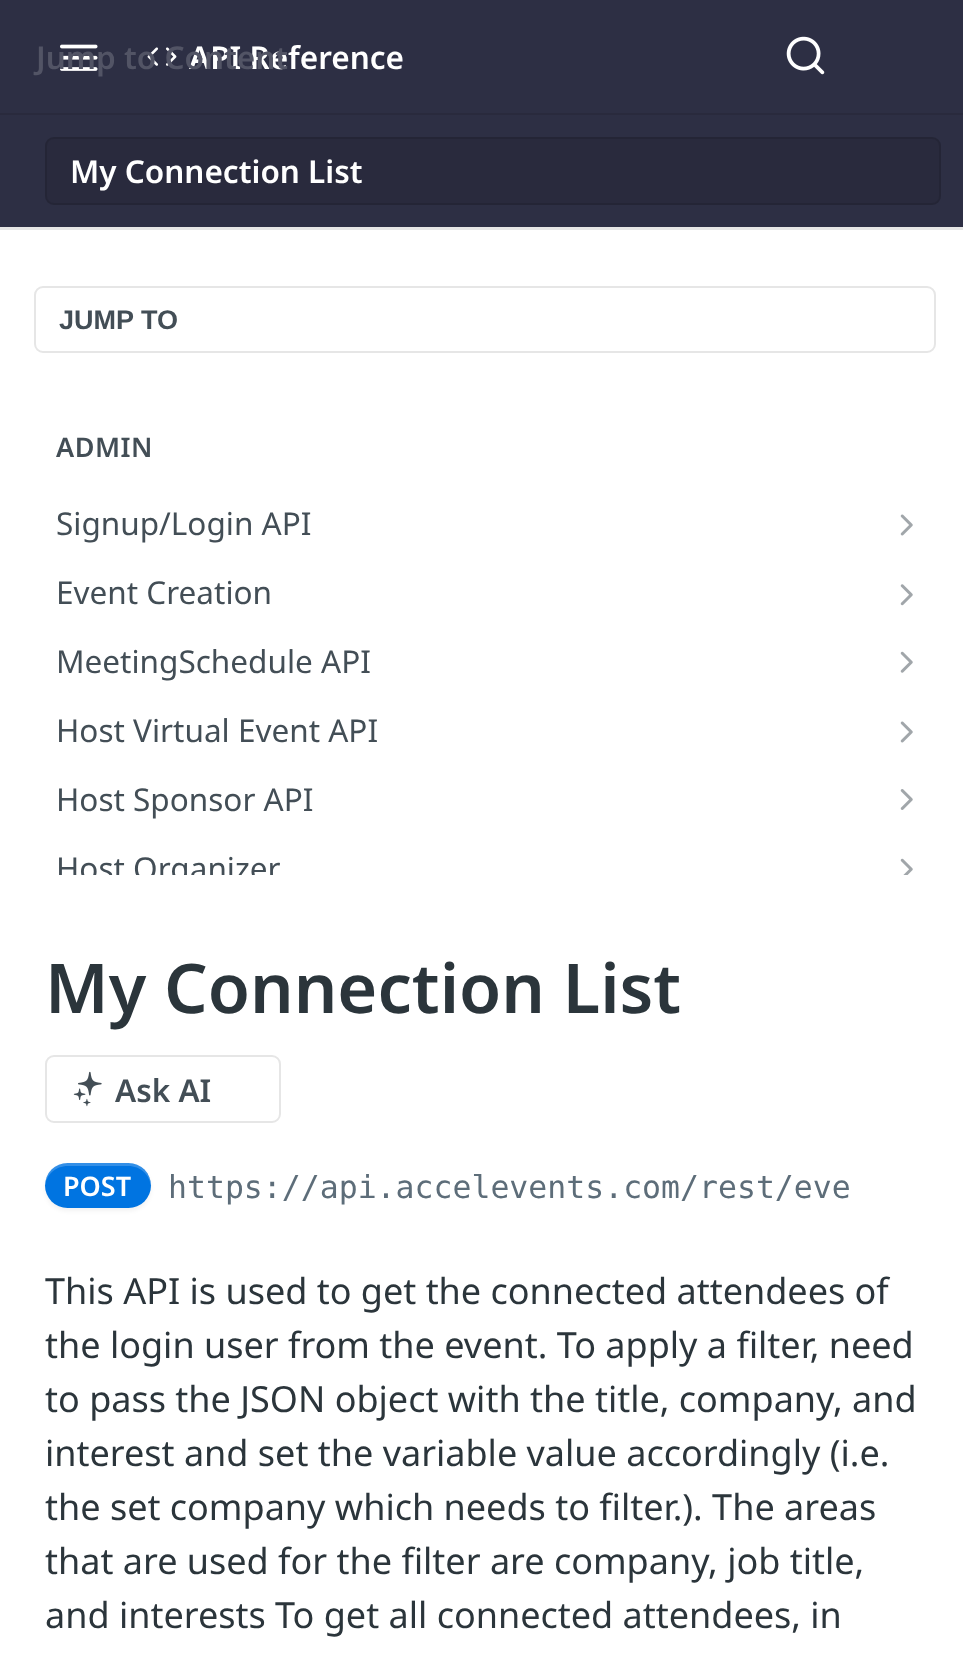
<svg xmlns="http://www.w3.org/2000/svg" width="963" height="1667">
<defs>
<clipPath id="clip1"><rect y="227" width="963" height="648"/></clipPath>
</defs>
<rect width="100%" height="100%" fill="#fff"/>
<rect y="227" width="963" height="3" fill="#e6e6e6"/>
<rect width="963" height="227" fill="#2d2f44"/>
<rect y="113" width="963" height="2" fill="#292a3d"/>
<image x="60" y="44" width="38" height="27" href="media/1.png"/>
<image x="147" y="47" width="30" height="19" href="media/2.png"/>
<text x="189" y="69" style="font-family:Noto Sans;font-size:31.5px;font-weight:600;fill:#fff">API Reference</text>
<text x="36" y="69" style="font-family:Noto Sans;font-size:31.5px;font-weight:600;fill:#525465">Jump to Content</text>
<image x="786" y="36" width="39" height="39" href="media/3.png"/>
<rect x="45" y="137" width="896" height="68" rx="9" fill="#292a3d"/>
<rect x="46" y="138" width="894" height="66" rx="8" fill="none" stroke="#0000001a" stroke-width="2"/>
<text x="70" y="183" style="font-family:Noto Sans;font-size:31.5px;font-weight:600;fill:#fff">My Connection List</text>
<rect x="35" y="287" width="900" height="65" rx="8" fill="none" stroke="#e6e6e6" stroke-width="2"/>
<text x="59" y="329" style="font-family:Liberation Sans;font-size:27px;font-weight:bold;fill:#434e56">JUMP TO</text>
<text x="56" y="457" style="font-family:Noto Sans;font-size:27px;font-weight:600;letter-spacing:0.5px;fill:#434e56">ADMIN</text>
<text x="56" y="535" style="font-family:Noto Sans;font-size:31.5px;fill:#434e56">Signup/Login API</text>
<image x="900" y="514" width="13" height="22" href="media/4.png"/>
<text x="56" y="604" style="font-family:Noto Sans;font-size:31.5px;fill:#434e56">Event Creation</text>
<image x="900" y="584" width="13" height="22" href="media/5.png"/>
<text x="56" y="673" style="font-family:Noto Sans;font-size:31.5px;fill:#434e56">MeetingSchedule API</text>
<image x="900" y="651" width="13" height="22" href="media/6.png"/>
<text x="56" y="742" style="font-family:Noto Sans;font-size:31.5px;fill:#434e56">Host Virtual Event API</text>
<image x="900" y="721" width="13" height="22" href="media/4.png"/>
<text x="56" y="811" style="font-family:Noto Sans;font-size:31.5px;fill:#434e56">Host Sponsor API</text>
<image x="900" y="789" width="13" height="21" href="media/7.png"/>
<g clip-path="url(#clip1)">
<text x="56" y="880" style="font-family:Noto Sans;font-size:31.5px;fill:#434e56">Host Organizer</text>
</g>
<image x="900" y="858" width="13" height="17" href="media/8.png"/>
<text x="45" y="1013" style="font-family:Noto Sans;font-size:68.5px;font-weight:600;fill:#2b353b">My Connection List</text>
<rect x="46" y="1056" width="234" height="66" rx="8" fill="none" stroke="#e6e6e6" stroke-width="2"/>
<image x="73" y="1071" width="29" height="36" href="media/9.png"/>
<text x="115" y="1102" style="font-family:Noto Sans;font-size:31.5px;font-weight:600;fill:#434e56">Ask AI</text>
<rect x="45" y="1166" width="106" height="45" rx="22.5" fill="#0000000d" filter="blur(2px)"/>
<rect x="45" y="1163" width="106" height="45" rx="22.5" fill="#0074e1"/>
<path d="M68 1166h60c13 0 22 9 23 21v-1c0-13-10-23-23-23h-60c-13 0-23 10-23 23v1c1-12 10-21 23-21z" fill="#ffffff33"/>
<text x="63" y="1196" style="font-family:Noto Sans;font-size:27px;font-weight:600;fill:#fff">POST</text>
<text x="168" y="1198" style="font-family:DejaVu Sans Mono;font-size:31.5px;fill:#5d6d79">https://api.accelevents.com/rest/eve</text>
<text x="45" y="1304" style="font-family:Noto Sans;font-size:36px;fill:#2b353b">This API is used to get the connected attendees of</text>
<text x="45" y="1358" style="font-family:Noto Sans;font-size:36px;fill:#2b353b">the login user from the event. To apply a filter, need</text>
<text x="45" y="1412" style="font-family:Noto Sans;font-size:36px;fill:#2b353b">to pass the JSON object with the title, company, and</text>
<text x="45" y="1466" style="font-family:Noto Sans;font-size:36px;fill:#2b353b">interest and set the variable value accordingly (i.e.</text>
<text x="45" y="1520" style="font-family:Noto Sans;font-size:36px;fill:#2b353b">the set company which needs to filter.). The areas</text>
<text x="45" y="1574" style="font-family:Noto Sans;font-size:36px;fill:#2b353b">that are used for the filter are company, job title,</text>
<text x="45" y="1628" style="font-family:Noto Sans;font-size:36px;fill:#2b353b">and interests To get all connected attendees, in</text>
</svg>
